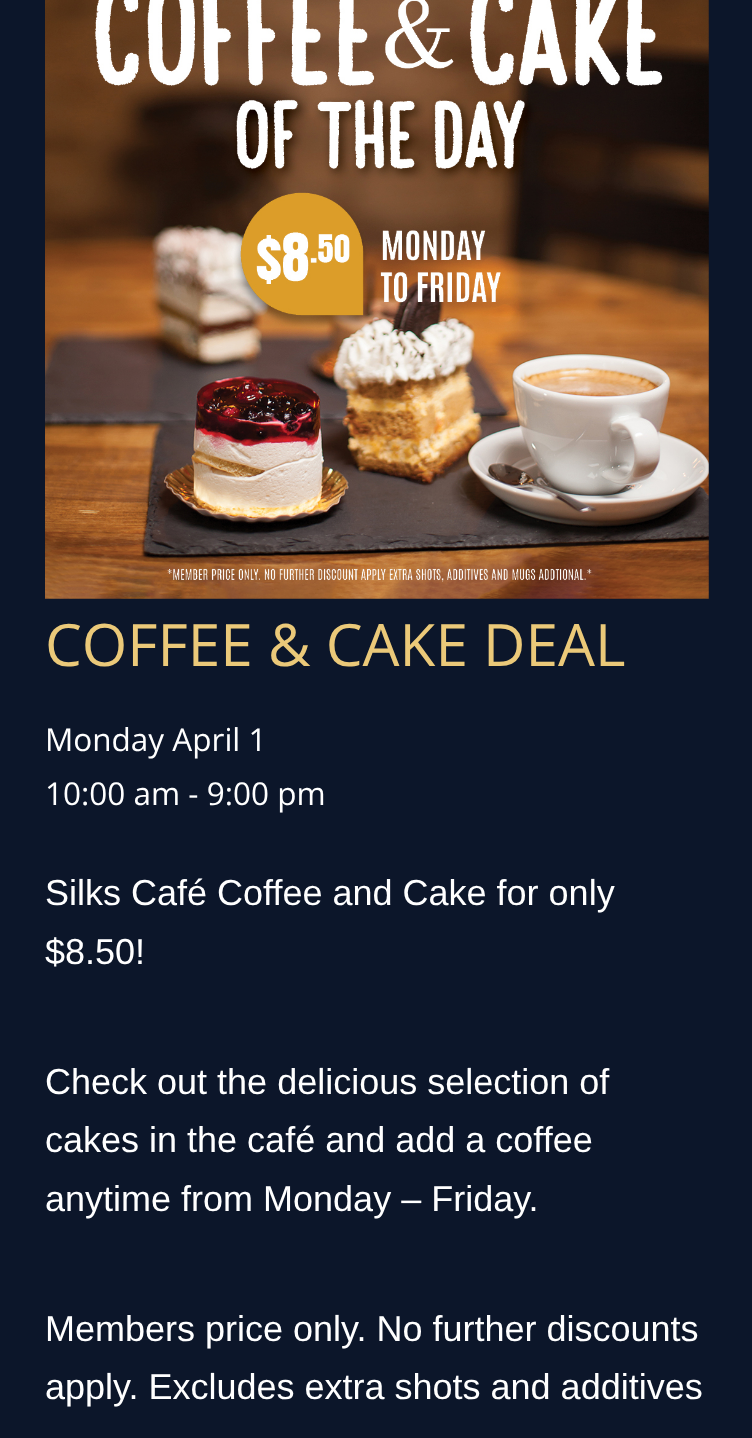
<svg xmlns="http://www.w3.org/2000/svg" width="752" height="1438">
<rect width="100%" height="100%" fill="#0c162a"/>
<image x="45" y="0" width="664" height="599" href="media/1.png"/>
<text x="45" y="666" style="font-family:Open Sans;font-size:58.5px;fill:#ebc979">COFFEE &amp; CAKE DEAL</text>
<text x="45" y="751" style="font-family:Open Sans;font-size:31.5px;fill:#fff">Monday April 1</text>
<text x="45" y="805" style="font-family:Open Sans;font-size:31.5px;fill:#fff">10:00 am - 9:00 pm</text>
<text x="45" y="905" style="font-family:Liberation Sans;font-size:36px;fill:#fff">Silks Café Coffee and Cake for only</text>
<text x="45" y="964" style="font-family:Liberation Sans;font-size:36px;fill:#fff">$8.50!</text>
<text x="45" y="1094" style="font-family:Liberation Sans;font-size:36px;fill:#fff">Check out the delicious selection of</text>
<text x="45" y="1152" style="font-family:Liberation Sans;font-size:36px;fill:#fff">cakes in the café and add a coffee</text>
<text x="45" y="1211" style="font-family:Liberation Sans;font-size:36px;fill:#fff">anytime from Monday – Friday.</text>
<text x="45" y="1341" style="font-family:Liberation Sans;font-size:36px;fill:#fff">Members price only. No further discounts</text>
<text x="45" y="1399" style="font-family:Liberation Sans;font-size:36px;fill:#fff">apply. Excludes extra shots and additives</text>
</svg>
